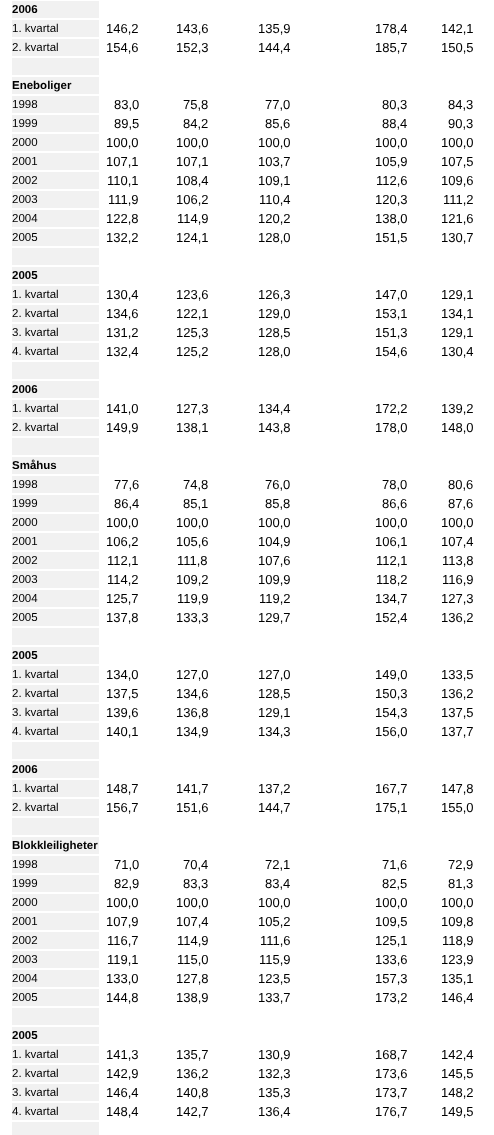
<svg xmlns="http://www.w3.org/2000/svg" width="494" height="1135">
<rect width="100%" height="100%" fill="#fff"/>
<rect x="12" y="1" width="87" height="17" fill="#f1f1f1"/>
<text x="12" y="13" style="font-family:Liberation Sans;font-size:11.5px;font-weight:bold;fill:#000">2006</text>
<rect x="12" y="20" width="87" height="17" fill="#f1f1f1"/>
<text x="12" y="32" style="font-family:Liberation Sans;font-size:11.5px;fill:#000">1. kvartal</text>
<text x="106" y="33" style="font-family:Liberation Sans;font-size:13px;fill:#000">146,2</text>
<text x="176" y="33" style="font-family:Liberation Sans;font-size:13px;fill:#000">143,6</text>
<text x="258" y="33" style="font-family:Liberation Sans;font-size:13px;fill:#000">135,9</text>
<text x="375" y="33" style="font-family:Liberation Sans;font-size:13px;fill:#000">178,4</text>
<text x="441" y="33" style="font-family:Liberation Sans;font-size:13px;fill:#000">142,1</text>
<rect x="12" y="39" width="87" height="17" fill="#f1f1f1"/>
<text x="12" y="51" style="font-family:Liberation Sans;font-size:11.5px;fill:#000">2. kvartal</text>
<text x="106" y="52" style="font-family:Liberation Sans;font-size:13px;fill:#000">154,6</text>
<text x="176" y="52" style="font-family:Liberation Sans;font-size:13px;fill:#000">152,3</text>
<text x="258" y="52" style="font-family:Liberation Sans;font-size:13px;fill:#000">144,4</text>
<text x="375" y="52" style="font-family:Liberation Sans;font-size:13px;fill:#000">185,7</text>
<text x="441" y="52" style="font-family:Liberation Sans;font-size:13px;fill:#000">150,5</text>
<rect x="12" y="58" width="87" height="17" fill="#f1f1f1"/>
<rect x="12" y="77" width="87" height="17" fill="#f1f1f1"/>
<text x="12" y="89" style="font-family:Liberation Sans;font-size:11.5px;font-weight:bold;fill:#000">Eneboliger</text>
<rect x="12" y="96" width="87" height="17" fill="#f1f1f1"/>
<text x="12" y="108" style="font-family:Liberation Sans;font-size:11.5px;fill:#000">1998</text>
<text x="114" y="109" style="font-family:Liberation Sans;font-size:13px;fill:#000">83,0</text>
<text x="183" y="109" style="font-family:Liberation Sans;font-size:13px;fill:#000">75,8</text>
<text x="265" y="109" style="font-family:Liberation Sans;font-size:13px;fill:#000">77,0</text>
<text x="382" y="109" style="font-family:Liberation Sans;font-size:13px;fill:#000">80,3</text>
<text x="448" y="109" style="font-family:Liberation Sans;font-size:13px;fill:#000">84,3</text>
<rect x="12" y="115" width="87" height="17" fill="#f1f1f1"/>
<text x="12" y="127" style="font-family:Liberation Sans;font-size:11.5px;fill:#000">1999</text>
<text x="114" y="128" style="font-family:Liberation Sans;font-size:13px;fill:#000">89,5</text>
<text x="183" y="128" style="font-family:Liberation Sans;font-size:13px;fill:#000">84,2</text>
<text x="265" y="128" style="font-family:Liberation Sans;font-size:13px;fill:#000">85,6</text>
<text x="382" y="128" style="font-family:Liberation Sans;font-size:13px;fill:#000">88,4</text>
<text x="448" y="128" style="font-family:Liberation Sans;font-size:13px;fill:#000">90,3</text>
<rect x="12" y="134" width="87" height="17" fill="#f1f1f1"/>
<text x="12" y="146" style="font-family:Liberation Sans;font-size:11.5px;fill:#000">2000</text>
<text x="106" y="147" style="font-family:Liberation Sans;font-size:13px;fill:#000">100,0</text>
<text x="176" y="147" style="font-family:Liberation Sans;font-size:13px;fill:#000">100,0</text>
<text x="258" y="147" style="font-family:Liberation Sans;font-size:13px;fill:#000">100,0</text>
<text x="375" y="147" style="font-family:Liberation Sans;font-size:13px;fill:#000">100,0</text>
<text x="441" y="147" style="font-family:Liberation Sans;font-size:13px;fill:#000">100,0</text>
<rect x="12" y="153" width="87" height="17" fill="#f1f1f1"/>
<text x="12" y="165" style="font-family:Liberation Sans;font-size:11.5px;fill:#000">2001</text>
<text x="106" y="166" style="font-family:Liberation Sans;font-size:13px;fill:#000">107,1</text>
<text x="176" y="166" style="font-family:Liberation Sans;font-size:13px;fill:#000">107,1</text>
<text x="258" y="166" style="font-family:Liberation Sans;font-size:13px;fill:#000">103,7</text>
<text x="375" y="166" style="font-family:Liberation Sans;font-size:13px;fill:#000">105,9</text>
<text x="441" y="166" style="font-family:Liberation Sans;font-size:13px;fill:#000">107,5</text>
<rect x="12" y="172" width="87" height="17" fill="#f1f1f1"/>
<text x="12" y="184" style="font-family:Liberation Sans;font-size:11.5px;fill:#000">2002</text>
<text x="107" y="185" style="font-family:Liberation Sans;font-size:13px;fill:#000">110,1</text>
<text x="176" y="185" style="font-family:Liberation Sans;font-size:13px;fill:#000">108,4</text>
<text x="258" y="185" style="font-family:Liberation Sans;font-size:13px;fill:#000">109,1</text>
<text x="376" y="185" style="font-family:Liberation Sans;font-size:13px;fill:#000">112,6</text>
<text x="441" y="185" style="font-family:Liberation Sans;font-size:13px;fill:#000">109,6</text>
<rect x="12" y="191" width="87" height="17" fill="#f1f1f1"/>
<text x="12" y="203" style="font-family:Liberation Sans;font-size:11.5px;fill:#000">2003</text>
<text x="108" y="204" style="font-family:Liberation Sans;font-size:13px;fill:#000">111,9</text>
<text x="176" y="204" style="font-family:Liberation Sans;font-size:13px;fill:#000">106,2</text>
<text x="259" y="204" style="font-family:Liberation Sans;font-size:13px;fill:#000">110,4</text>
<text x="375" y="204" style="font-family:Liberation Sans;font-size:13px;fill:#000">120,3</text>
<text x="443" y="204" style="font-family:Liberation Sans;font-size:13px;fill:#000">111,2</text>
<rect x="12" y="210" width="87" height="17" fill="#f1f1f1"/>
<text x="12" y="222" style="font-family:Liberation Sans;font-size:11.5px;fill:#000">2004</text>
<text x="106" y="223" style="font-family:Liberation Sans;font-size:13px;fill:#000">122,8</text>
<text x="177" y="223" style="font-family:Liberation Sans;font-size:13px;fill:#000">114,9</text>
<text x="258" y="223" style="font-family:Liberation Sans;font-size:13px;fill:#000">120,2</text>
<text x="375" y="223" style="font-family:Liberation Sans;font-size:13px;fill:#000">138,0</text>
<text x="441" y="223" style="font-family:Liberation Sans;font-size:13px;fill:#000">121,6</text>
<rect x="12" y="229" width="87" height="17" fill="#f1f1f1"/>
<text x="12" y="241" style="font-family:Liberation Sans;font-size:11.5px;fill:#000">2005</text>
<text x="106" y="242" style="font-family:Liberation Sans;font-size:13px;fill:#000">132,2</text>
<text x="176" y="242" style="font-family:Liberation Sans;font-size:13px;fill:#000">124,1</text>
<text x="258" y="242" style="font-family:Liberation Sans;font-size:13px;fill:#000">128,0</text>
<text x="375" y="242" style="font-family:Liberation Sans;font-size:13px;fill:#000">151,5</text>
<text x="441" y="242" style="font-family:Liberation Sans;font-size:13px;fill:#000">130,7</text>
<rect x="12" y="248" width="87" height="17" fill="#f1f1f1"/>
<rect x="12" y="267" width="87" height="17" fill="#f1f1f1"/>
<text x="12" y="279" style="font-family:Liberation Sans;font-size:11.5px;font-weight:bold;fill:#000">2005</text>
<rect x="12" y="286" width="87" height="17" fill="#f1f1f1"/>
<text x="12" y="298" style="font-family:Liberation Sans;font-size:11.5px;fill:#000">1. kvartal</text>
<text x="106" y="299" style="font-family:Liberation Sans;font-size:13px;fill:#000">130,4</text>
<text x="176" y="299" style="font-family:Liberation Sans;font-size:13px;fill:#000">123,6</text>
<text x="258" y="299" style="font-family:Liberation Sans;font-size:13px;fill:#000">126,3</text>
<text x="375" y="299" style="font-family:Liberation Sans;font-size:13px;fill:#000">147,0</text>
<text x="441" y="299" style="font-family:Liberation Sans;font-size:13px;fill:#000">129,1</text>
<rect x="12" y="305" width="87" height="17" fill="#f1f1f1"/>
<text x="12" y="317" style="font-family:Liberation Sans;font-size:11.5px;fill:#000">2. kvartal</text>
<text x="106" y="318" style="font-family:Liberation Sans;font-size:13px;fill:#000">134,6</text>
<text x="176" y="318" style="font-family:Liberation Sans;font-size:13px;fill:#000">122,1</text>
<text x="258" y="318" style="font-family:Liberation Sans;font-size:13px;fill:#000">129,0</text>
<text x="375" y="318" style="font-family:Liberation Sans;font-size:13px;fill:#000">153,1</text>
<text x="441" y="318" style="font-family:Liberation Sans;font-size:13px;fill:#000">134,1</text>
<rect x="12" y="324" width="87" height="17" fill="#f1f1f1"/>
<text x="12" y="336" style="font-family:Liberation Sans;font-size:11.5px;fill:#000">3. kvartal</text>
<text x="106" y="337" style="font-family:Liberation Sans;font-size:13px;fill:#000">131,2</text>
<text x="176" y="337" style="font-family:Liberation Sans;font-size:13px;fill:#000">125,3</text>
<text x="258" y="337" style="font-family:Liberation Sans;font-size:13px;fill:#000">128,5</text>
<text x="375" y="337" style="font-family:Liberation Sans;font-size:13px;fill:#000">151,3</text>
<text x="441" y="337" style="font-family:Liberation Sans;font-size:13px;fill:#000">129,1</text>
<rect x="12" y="343" width="87" height="17" fill="#f1f1f1"/>
<text x="12" y="355" style="font-family:Liberation Sans;font-size:11.5px;fill:#000">4. kvartal</text>
<text x="106" y="356" style="font-family:Liberation Sans;font-size:13px;fill:#000">132,4</text>
<text x="176" y="356" style="font-family:Liberation Sans;font-size:13px;fill:#000">125,2</text>
<text x="258" y="356" style="font-family:Liberation Sans;font-size:13px;fill:#000">128,0</text>
<text x="375" y="356" style="font-family:Liberation Sans;font-size:13px;fill:#000">154,6</text>
<text x="441" y="356" style="font-family:Liberation Sans;font-size:13px;fill:#000">130,4</text>
<rect x="12" y="362" width="87" height="17" fill="#f1f1f1"/>
<rect x="12" y="381" width="87" height="17" fill="#f1f1f1"/>
<text x="12" y="393" style="font-family:Liberation Sans;font-size:11.5px;font-weight:bold;fill:#000">2006</text>
<rect x="12" y="400" width="87" height="17" fill="#f1f1f1"/>
<text x="12" y="412" style="font-family:Liberation Sans;font-size:11.5px;fill:#000">1. kvartal</text>
<text x="106" y="413" style="font-family:Liberation Sans;font-size:13px;fill:#000">141,0</text>
<text x="176" y="413" style="font-family:Liberation Sans;font-size:13px;fill:#000">127,3</text>
<text x="258" y="413" style="font-family:Liberation Sans;font-size:13px;fill:#000">134,4</text>
<text x="375" y="413" style="font-family:Liberation Sans;font-size:13px;fill:#000">172,2</text>
<text x="441" y="413" style="font-family:Liberation Sans;font-size:13px;fill:#000">139,2</text>
<rect x="12" y="419" width="87" height="17" fill="#f1f1f1"/>
<text x="12" y="431" style="font-family:Liberation Sans;font-size:11.5px;fill:#000">2. kvartal</text>
<text x="106" y="432" style="font-family:Liberation Sans;font-size:13px;fill:#000">149,9</text>
<text x="176" y="432" style="font-family:Liberation Sans;font-size:13px;fill:#000">138,1</text>
<text x="258" y="432" style="font-family:Liberation Sans;font-size:13px;fill:#000">143,8</text>
<text x="375" y="432" style="font-family:Liberation Sans;font-size:13px;fill:#000">178,0</text>
<text x="441" y="432" style="font-family:Liberation Sans;font-size:13px;fill:#000">148,0</text>
<rect x="12" y="438" width="87" height="17" fill="#f1f1f1"/>
<rect x="12" y="457" width="87" height="17" fill="#f1f1f1"/>
<text x="12" y="469" style="font-family:Liberation Sans;font-size:11.5px;font-weight:bold;fill:#000">Småhus</text>
<rect x="12" y="476" width="87" height="17" fill="#f1f1f1"/>
<text x="12" y="488" style="font-family:Liberation Sans;font-size:11.5px;fill:#000">1998</text>
<text x="114" y="489" style="font-family:Liberation Sans;font-size:13px;fill:#000">77,6</text>
<text x="183" y="489" style="font-family:Liberation Sans;font-size:13px;fill:#000">74,8</text>
<text x="265" y="489" style="font-family:Liberation Sans;font-size:13px;fill:#000">76,0</text>
<text x="382" y="489" style="font-family:Liberation Sans;font-size:13px;fill:#000">78,0</text>
<text x="448" y="489" style="font-family:Liberation Sans;font-size:13px;fill:#000">80,6</text>
<rect x="12" y="495" width="87" height="17" fill="#f1f1f1"/>
<text x="12" y="507" style="font-family:Liberation Sans;font-size:11.5px;fill:#000">1999</text>
<text x="114" y="508" style="font-family:Liberation Sans;font-size:13px;fill:#000">86,4</text>
<text x="183" y="508" style="font-family:Liberation Sans;font-size:13px;fill:#000">85,1</text>
<text x="265" y="508" style="font-family:Liberation Sans;font-size:13px;fill:#000">85,8</text>
<text x="382" y="508" style="font-family:Liberation Sans;font-size:13px;fill:#000">86,6</text>
<text x="448" y="508" style="font-family:Liberation Sans;font-size:13px;fill:#000">87,6</text>
<rect x="12" y="514" width="87" height="17" fill="#f1f1f1"/>
<text x="12" y="526" style="font-family:Liberation Sans;font-size:11.5px;fill:#000">2000</text>
<text x="106" y="527" style="font-family:Liberation Sans;font-size:13px;fill:#000">100,0</text>
<text x="176" y="527" style="font-family:Liberation Sans;font-size:13px;fill:#000">100,0</text>
<text x="258" y="527" style="font-family:Liberation Sans;font-size:13px;fill:#000">100,0</text>
<text x="375" y="527" style="font-family:Liberation Sans;font-size:13px;fill:#000">100,0</text>
<text x="441" y="527" style="font-family:Liberation Sans;font-size:13px;fill:#000">100,0</text>
<rect x="12" y="533" width="87" height="17" fill="#f1f1f1"/>
<text x="12" y="545" style="font-family:Liberation Sans;font-size:11.5px;fill:#000">2001</text>
<text x="106" y="546" style="font-family:Liberation Sans;font-size:13px;fill:#000">106,2</text>
<text x="176" y="546" style="font-family:Liberation Sans;font-size:13px;fill:#000">105,6</text>
<text x="258" y="546" style="font-family:Liberation Sans;font-size:13px;fill:#000">104,9</text>
<text x="375" y="546" style="font-family:Liberation Sans;font-size:13px;fill:#000">106,1</text>
<text x="441" y="546" style="font-family:Liberation Sans;font-size:13px;fill:#000">107,4</text>
<rect x="12" y="552" width="87" height="17" fill="#f1f1f1"/>
<text x="12" y="564" style="font-family:Liberation Sans;font-size:11.5px;fill:#000">2002</text>
<text x="107" y="565" style="font-family:Liberation Sans;font-size:13px;fill:#000">112,1</text>
<text x="177" y="565" style="font-family:Liberation Sans;font-size:13px;fill:#000">111,8</text>
<text x="258" y="565" style="font-family:Liberation Sans;font-size:13px;fill:#000">107,6</text>
<text x="376" y="565" style="font-family:Liberation Sans;font-size:13px;fill:#000">112,1</text>
<text x="442" y="565" style="font-family:Liberation Sans;font-size:13px;fill:#000">113,8</text>
<rect x="12" y="571" width="87" height="17" fill="#f1f1f1"/>
<text x="12" y="583" style="font-family:Liberation Sans;font-size:11.5px;fill:#000">2003</text>
<text x="107" y="584" style="font-family:Liberation Sans;font-size:13px;fill:#000">114,2</text>
<text x="176" y="584" style="font-family:Liberation Sans;font-size:13px;fill:#000">109,2</text>
<text x="258" y="584" style="font-family:Liberation Sans;font-size:13px;fill:#000">109,9</text>
<text x="376" y="584" style="font-family:Liberation Sans;font-size:13px;fill:#000">118,2</text>
<text x="442" y="584" style="font-family:Liberation Sans;font-size:13px;fill:#000">116,9</text>
<rect x="12" y="590" width="87" height="17" fill="#f1f1f1"/>
<text x="12" y="602" style="font-family:Liberation Sans;font-size:11.5px;fill:#000">2004</text>
<text x="106" y="603" style="font-family:Liberation Sans;font-size:13px;fill:#000">125,7</text>
<text x="177" y="603" style="font-family:Liberation Sans;font-size:13px;fill:#000">119,9</text>
<text x="259" y="603" style="font-family:Liberation Sans;font-size:13px;fill:#000">119,2</text>
<text x="375" y="603" style="font-family:Liberation Sans;font-size:13px;fill:#000">134,7</text>
<text x="441" y="603" style="font-family:Liberation Sans;font-size:13px;fill:#000">127,3</text>
<rect x="12" y="609" width="87" height="17" fill="#f1f1f1"/>
<text x="12" y="621" style="font-family:Liberation Sans;font-size:11.5px;fill:#000">2005</text>
<text x="106" y="622" style="font-family:Liberation Sans;font-size:13px;fill:#000">137,8</text>
<text x="176" y="622" style="font-family:Liberation Sans;font-size:13px;fill:#000">133,3</text>
<text x="258" y="622" style="font-family:Liberation Sans;font-size:13px;fill:#000">129,7</text>
<text x="375" y="622" style="font-family:Liberation Sans;font-size:13px;fill:#000">152,4</text>
<text x="441" y="622" style="font-family:Liberation Sans;font-size:13px;fill:#000">136,2</text>
<rect x="12" y="628" width="87" height="17" fill="#f1f1f1"/>
<rect x="12" y="647" width="87" height="17" fill="#f1f1f1"/>
<text x="12" y="659" style="font-family:Liberation Sans;font-size:11.5px;font-weight:bold;fill:#000">2005</text>
<rect x="12" y="666" width="87" height="17" fill="#f1f1f1"/>
<text x="12" y="678" style="font-family:Liberation Sans;font-size:11.5px;fill:#000">1. kvartal</text>
<text x="106" y="679" style="font-family:Liberation Sans;font-size:13px;fill:#000">134,0</text>
<text x="176" y="679" style="font-family:Liberation Sans;font-size:13px;fill:#000">127,0</text>
<text x="258" y="679" style="font-family:Liberation Sans;font-size:13px;fill:#000">127,0</text>
<text x="375" y="679" style="font-family:Liberation Sans;font-size:13px;fill:#000">149,0</text>
<text x="441" y="679" style="font-family:Liberation Sans;font-size:13px;fill:#000">133,5</text>
<rect x="12" y="685" width="87" height="17" fill="#f1f1f1"/>
<text x="12" y="697" style="font-family:Liberation Sans;font-size:11.5px;fill:#000">2. kvartal</text>
<text x="106" y="698" style="font-family:Liberation Sans;font-size:13px;fill:#000">137,5</text>
<text x="176" y="698" style="font-family:Liberation Sans;font-size:13px;fill:#000">134,6</text>
<text x="258" y="698" style="font-family:Liberation Sans;font-size:13px;fill:#000">128,5</text>
<text x="375" y="698" style="font-family:Liberation Sans;font-size:13px;fill:#000">150,3</text>
<text x="441" y="698" style="font-family:Liberation Sans;font-size:13px;fill:#000">136,2</text>
<rect x="12" y="704" width="87" height="17" fill="#f1f1f1"/>
<text x="12" y="716" style="font-family:Liberation Sans;font-size:11.5px;fill:#000">3. kvartal</text>
<text x="106" y="717" style="font-family:Liberation Sans;font-size:13px;fill:#000">139,6</text>
<text x="176" y="717" style="font-family:Liberation Sans;font-size:13px;fill:#000">136,8</text>
<text x="258" y="717" style="font-family:Liberation Sans;font-size:13px;fill:#000">129,1</text>
<text x="375" y="717" style="font-family:Liberation Sans;font-size:13px;fill:#000">154,3</text>
<text x="441" y="717" style="font-family:Liberation Sans;font-size:13px;fill:#000">137,5</text>
<rect x="12" y="723" width="87" height="17" fill="#f1f1f1"/>
<text x="12" y="735" style="font-family:Liberation Sans;font-size:11.5px;fill:#000">4. kvartal</text>
<text x="106" y="736" style="font-family:Liberation Sans;font-size:13px;fill:#000">140,1</text>
<text x="176" y="736" style="font-family:Liberation Sans;font-size:13px;fill:#000">134,9</text>
<text x="258" y="736" style="font-family:Liberation Sans;font-size:13px;fill:#000">134,3</text>
<text x="375" y="736" style="font-family:Liberation Sans;font-size:13px;fill:#000">156,0</text>
<text x="441" y="736" style="font-family:Liberation Sans;font-size:13px;fill:#000">137,7</text>
<rect x="12" y="742" width="87" height="17" fill="#f1f1f1"/>
<rect x="12" y="761" width="87" height="17" fill="#f1f1f1"/>
<text x="12" y="773" style="font-family:Liberation Sans;font-size:11.5px;font-weight:bold;fill:#000">2006</text>
<rect x="12" y="780" width="87" height="17" fill="#f1f1f1"/>
<text x="12" y="792" style="font-family:Liberation Sans;font-size:11.5px;fill:#000">1. kvartal</text>
<text x="106" y="793" style="font-family:Liberation Sans;font-size:13px;fill:#000">148,7</text>
<text x="176" y="793" style="font-family:Liberation Sans;font-size:13px;fill:#000">141,7</text>
<text x="258" y="793" style="font-family:Liberation Sans;font-size:13px;fill:#000">137,2</text>
<text x="375" y="793" style="font-family:Liberation Sans;font-size:13px;fill:#000">167,7</text>
<text x="441" y="793" style="font-family:Liberation Sans;font-size:13px;fill:#000">147,8</text>
<rect x="12" y="799" width="87" height="17" fill="#f1f1f1"/>
<text x="12" y="811" style="font-family:Liberation Sans;font-size:11.5px;fill:#000">2. kvartal</text>
<text x="106" y="812" style="font-family:Liberation Sans;font-size:13px;fill:#000">156,7</text>
<text x="176" y="812" style="font-family:Liberation Sans;font-size:13px;fill:#000">151,6</text>
<text x="258" y="812" style="font-family:Liberation Sans;font-size:13px;fill:#000">144,7</text>
<text x="375" y="812" style="font-family:Liberation Sans;font-size:13px;fill:#000">175,1</text>
<text x="441" y="812" style="font-family:Liberation Sans;font-size:13px;fill:#000">155,0</text>
<rect x="12" y="818" width="87" height="17" fill="#f1f1f1"/>
<rect x="12" y="837" width="87" height="17" fill="#f1f1f1"/>
<text x="12" y="849" style="font-family:Liberation Sans;font-size:11.5px;font-weight:bold;fill:#000">Blokkleiligheter</text>
<rect x="12" y="856" width="87" height="17" fill="#f1f1f1"/>
<text x="12" y="868" style="font-family:Liberation Sans;font-size:11.5px;fill:#000">1998</text>
<text x="114" y="869" style="font-family:Liberation Sans;font-size:13px;fill:#000">71,0</text>
<text x="183" y="869" style="font-family:Liberation Sans;font-size:13px;fill:#000">70,4</text>
<text x="265" y="869" style="font-family:Liberation Sans;font-size:13px;fill:#000">72,1</text>
<text x="382" y="869" style="font-family:Liberation Sans;font-size:13px;fill:#000">71,6</text>
<text x="448" y="869" style="font-family:Liberation Sans;font-size:13px;fill:#000">72,9</text>
<rect x="12" y="875" width="87" height="17" fill="#f1f1f1"/>
<text x="12" y="887" style="font-family:Liberation Sans;font-size:11.5px;fill:#000">1999</text>
<text x="114" y="888" style="font-family:Liberation Sans;font-size:13px;fill:#000">82,9</text>
<text x="183" y="888" style="font-family:Liberation Sans;font-size:13px;fill:#000">83,3</text>
<text x="265" y="888" style="font-family:Liberation Sans;font-size:13px;fill:#000">83,4</text>
<text x="382" y="888" style="font-family:Liberation Sans;font-size:13px;fill:#000">82,5</text>
<text x="448" y="888" style="font-family:Liberation Sans;font-size:13px;fill:#000">81,3</text>
<rect x="12" y="894" width="87" height="17" fill="#f1f1f1"/>
<text x="12" y="906" style="font-family:Liberation Sans;font-size:11.5px;fill:#000">2000</text>
<text x="106" y="907" style="font-family:Liberation Sans;font-size:13px;fill:#000">100,0</text>
<text x="176" y="907" style="font-family:Liberation Sans;font-size:13px;fill:#000">100,0</text>
<text x="258" y="907" style="font-family:Liberation Sans;font-size:13px;fill:#000">100,0</text>
<text x="375" y="907" style="font-family:Liberation Sans;font-size:13px;fill:#000">100,0</text>
<text x="441" y="907" style="font-family:Liberation Sans;font-size:13px;fill:#000">100,0</text>
<rect x="12" y="913" width="87" height="17" fill="#f1f1f1"/>
<text x="12" y="925" style="font-family:Liberation Sans;font-size:11.5px;fill:#000">2001</text>
<text x="106" y="926" style="font-family:Liberation Sans;font-size:13px;fill:#000">107,9</text>
<text x="176" y="926" style="font-family:Liberation Sans;font-size:13px;fill:#000">107,4</text>
<text x="258" y="926" style="font-family:Liberation Sans;font-size:13px;fill:#000">105,2</text>
<text x="375" y="926" style="font-family:Liberation Sans;font-size:13px;fill:#000">109,5</text>
<text x="441" y="926" style="font-family:Liberation Sans;font-size:13px;fill:#000">109,8</text>
<rect x="12" y="932" width="87" height="17" fill="#f1f1f1"/>
<text x="12" y="944" style="font-family:Liberation Sans;font-size:11.5px;fill:#000">2002</text>
<text x="107" y="945" style="font-family:Liberation Sans;font-size:13px;fill:#000">116,7</text>
<text x="177" y="945" style="font-family:Liberation Sans;font-size:13px;fill:#000">114,9</text>
<text x="260" y="945" style="font-family:Liberation Sans;font-size:13px;fill:#000">111,6</text>
<text x="375" y="945" style="font-family:Liberation Sans;font-size:13px;fill:#000">125,1</text>
<text x="442" y="945" style="font-family:Liberation Sans;font-size:13px;fill:#000">118,9</text>
<rect x="12" y="951" width="87" height="17" fill="#f1f1f1"/>
<text x="12" y="963" style="font-family:Liberation Sans;font-size:11.5px;fill:#000">2003</text>
<text x="107" y="964" style="font-family:Liberation Sans;font-size:13px;fill:#000">119,1</text>
<text x="177" y="964" style="font-family:Liberation Sans;font-size:13px;fill:#000">115,0</text>
<text x="259" y="964" style="font-family:Liberation Sans;font-size:13px;fill:#000">115,9</text>
<text x="375" y="964" style="font-family:Liberation Sans;font-size:13px;fill:#000">133,6</text>
<text x="441" y="964" style="font-family:Liberation Sans;font-size:13px;fill:#000">123,9</text>
<rect x="12" y="970" width="87" height="17" fill="#f1f1f1"/>
<text x="12" y="982" style="font-family:Liberation Sans;font-size:11.5px;fill:#000">2004</text>
<text x="106" y="983" style="font-family:Liberation Sans;font-size:13px;fill:#000">133,0</text>
<text x="176" y="983" style="font-family:Liberation Sans;font-size:13px;fill:#000">127,8</text>
<text x="258" y="983" style="font-family:Liberation Sans;font-size:13px;fill:#000">123,5</text>
<text x="375" y="983" style="font-family:Liberation Sans;font-size:13px;fill:#000">157,3</text>
<text x="441" y="983" style="font-family:Liberation Sans;font-size:13px;fill:#000">135,1</text>
<rect x="12" y="989" width="87" height="17" fill="#f1f1f1"/>
<text x="12" y="1001" style="font-family:Liberation Sans;font-size:11.5px;fill:#000">2005</text>
<text x="106" y="1002" style="font-family:Liberation Sans;font-size:13px;fill:#000">144,8</text>
<text x="176" y="1002" style="font-family:Liberation Sans;font-size:13px;fill:#000">138,9</text>
<text x="258" y="1002" style="font-family:Liberation Sans;font-size:13px;fill:#000">133,7</text>
<text x="375" y="1002" style="font-family:Liberation Sans;font-size:13px;fill:#000">173,2</text>
<text x="441" y="1002" style="font-family:Liberation Sans;font-size:13px;fill:#000">146,4</text>
<rect x="12" y="1008" width="87" height="17" fill="#f1f1f1"/>
<rect x="12" y="1027" width="87" height="17" fill="#f1f1f1"/>
<text x="12" y="1039" style="font-family:Liberation Sans;font-size:11.5px;font-weight:bold;fill:#000">2005</text>
<rect x="12" y="1046" width="87" height="17" fill="#f1f1f1"/>
<text x="12" y="1058" style="font-family:Liberation Sans;font-size:11.5px;fill:#000">1. kvartal</text>
<text x="106" y="1059" style="font-family:Liberation Sans;font-size:13px;fill:#000">141,3</text>
<text x="176" y="1059" style="font-family:Liberation Sans;font-size:13px;fill:#000">135,7</text>
<text x="258" y="1059" style="font-family:Liberation Sans;font-size:13px;fill:#000">130,9</text>
<text x="375" y="1059" style="font-family:Liberation Sans;font-size:13px;fill:#000">168,7</text>
<text x="441" y="1059" style="font-family:Liberation Sans;font-size:13px;fill:#000">142,4</text>
<rect x="12" y="1065" width="87" height="17" fill="#f1f1f1"/>
<text x="12" y="1077" style="font-family:Liberation Sans;font-size:11.5px;fill:#000">2. kvartal</text>
<text x="106" y="1078" style="font-family:Liberation Sans;font-size:13px;fill:#000">142,9</text>
<text x="176" y="1078" style="font-family:Liberation Sans;font-size:13px;fill:#000">136,2</text>
<text x="258" y="1078" style="font-family:Liberation Sans;font-size:13px;fill:#000">132,3</text>
<text x="375" y="1078" style="font-family:Liberation Sans;font-size:13px;fill:#000">173,6</text>
<text x="441" y="1078" style="font-family:Liberation Sans;font-size:13px;fill:#000">145,5</text>
<rect x="12" y="1084" width="87" height="17" fill="#f1f1f1"/>
<text x="12" y="1096" style="font-family:Liberation Sans;font-size:11.5px;fill:#000">3. kvartal</text>
<text x="106" y="1097" style="font-family:Liberation Sans;font-size:13px;fill:#000">146,4</text>
<text x="176" y="1097" style="font-family:Liberation Sans;font-size:13px;fill:#000">140,8</text>
<text x="258" y="1097" style="font-family:Liberation Sans;font-size:13px;fill:#000">135,3</text>
<text x="375" y="1097" style="font-family:Liberation Sans;font-size:13px;fill:#000">173,7</text>
<text x="441" y="1097" style="font-family:Liberation Sans;font-size:13px;fill:#000">148,2</text>
<rect x="12" y="1103" width="87" height="17" fill="#f1f1f1"/>
<text x="12" y="1115" style="font-family:Liberation Sans;font-size:11.5px;fill:#000">4. kvartal</text>
<text x="106" y="1116" style="font-family:Liberation Sans;font-size:13px;fill:#000">148,4</text>
<text x="176" y="1116" style="font-family:Liberation Sans;font-size:13px;fill:#000">142,7</text>
<text x="258" y="1116" style="font-family:Liberation Sans;font-size:13px;fill:#000">136,4</text>
<text x="375" y="1116" style="font-family:Liberation Sans;font-size:13px;fill:#000">176,7</text>
<text x="441" y="1116" style="font-family:Liberation Sans;font-size:13px;fill:#000">149,5</text>
<rect x="12" y="1122" width="87" height="13" fill="#f1f1f1"/>
</svg>
